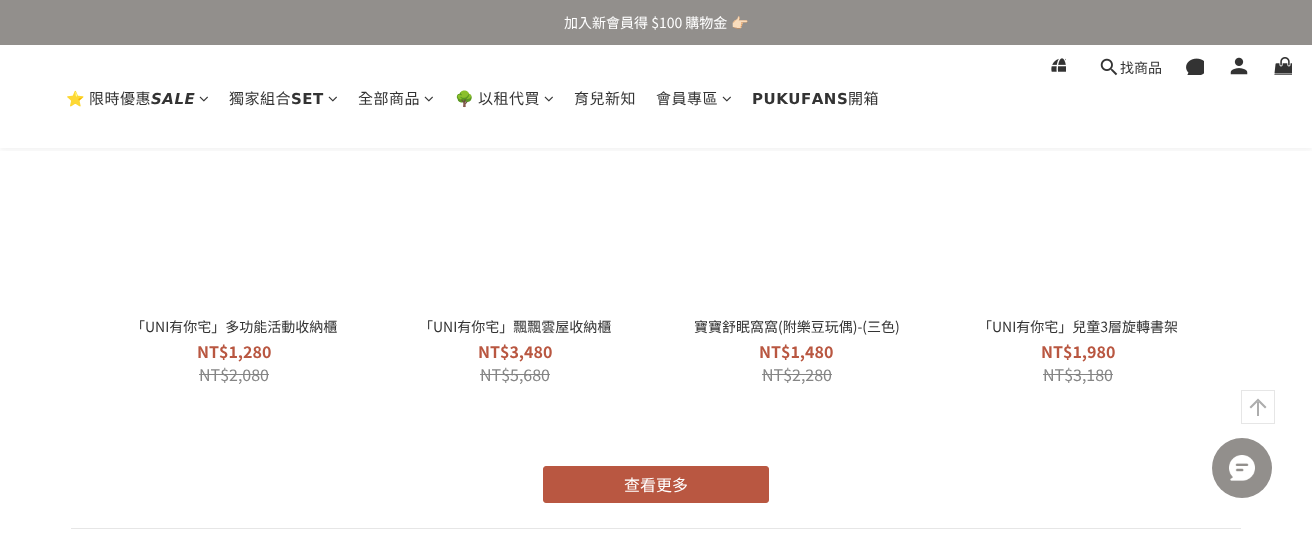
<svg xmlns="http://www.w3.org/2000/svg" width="1312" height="554">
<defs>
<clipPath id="clip1"><rect x="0" y="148" width="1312" height="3"/></clipPath>
</defs>
<rect width="100%" height="100%" fill="#fff"/>
<rect width="1312" height="45" fill="#928f8c"/>
<text x="564" y="28" style="font-family:Noto Sans TC;font-size:14px;fill:#fff">加入新會員得 $100 購物金</text>
<text x="731" y="28" style="font-family:Noto Color Emoji;font-size:14px;fill:#fff">👉🏻</text>
<g clip-path="url(#clip1)">
<rect y="47" width="1312" height="103" fill="#0000000f" filter="blur(3px)"/>
</g>
<image x="1051" y="58" width="15" height="14" href="media/1.png"/>
<image x="1100" y="58" width="18" height="18" href="media/2.png"/>
<text x="1120" y="73" style="font-family:Noto Sans TC;font-size:14px;fill:#333">找商品</text>
<image x="1186" y="58" width="18" height="17" href="media/3.png"/>
<image x="1230" y="57" width="18" height="18" href="media/4.png"/>
<image x="1274" y="57" width="18" height="18" href="media/5.png"/>
<text x="66" y="104" style="font-family:'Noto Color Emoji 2';font-size:15px;letter-spacing:0.5px;fill:#333">⭐</text>
<text x="89" y="104" style="font-family:Noto Sans TC;font-size:15px;letter-spacing:0.5px;fill:#333">限時優惠</text>
<text x="151" y="104" style="font-family:DejaVu Sans;font-size:15px;font-weight:bold;font-style:italic;letter-spacing:0.5px;fill:#333">𝙎𝘼𝙇𝙀</text>
<image x="199" y="96" width="9" height="6" href="media/6.png"/>
<text x="229" y="104" style="font-family:Noto Sans TC;font-size:15px;letter-spacing:0.5px;fill:#333">獨家組合</text>
<text x="291" y="104" style="font-family:DejaVu Sans;font-size:15px;font-weight:bold;letter-spacing:0.5px;fill:#333">𝗦𝗘𝗧</text>
<image x="328" y="96" width="9" height="6" href="media/6.png"/>
<text x="358" y="104" style="font-family:Noto Sans TC;font-size:15px;letter-spacing:0.5px;fill:#333">全部商品</text>
<image x="424" y="96" width="9" height="6" href="media/6.png"/>
<text x="455" y="104" style="font-family:'Noto Color Emoji 2';font-size:15px;letter-spacing:0.5px;fill:#333">🌳</text>
<text x="478" y="104" style="font-family:Noto Sans TC;font-size:15px;letter-spacing:0.5px;fill:#333">以租代買</text>
<image x="544" y="96" width="9" height="6" href="media/6.png"/>
<text x="574" y="104" style="font-family:Noto Sans TC;font-size:15px;letter-spacing:0.5px;fill:#333">育兒新知</text>
<text x="656" y="104" style="font-family:Noto Sans TC;font-size:15px;letter-spacing:0.5px;fill:#333">會員專區</text>
<image x="722" y="96" width="9" height="6" href="media/6.png"/>
<text x="752" y="104" style="font-family:DejaVu Sans;font-size:15px;font-weight:bold;letter-spacing:0.5px;fill:#333">𝗣𝗨𝗞𝗨𝗙𝗔𝗡𝗦</text>
<text x="848" y="104" style="font-family:Noto Sans TC;font-size:15px;letter-spacing:0.5px;fill:#333">開箱</text>
<text x="131" y="332" style="font-family:Noto Sans TC;font-size:14px;fill:#333">「UNI有你宅」多功能活動收納櫃</text>
<text x="197" y="358" style="font-family:Noto Sans TC;font-size:16px;font-weight:bold;fill:#b95741">NT$1,280</text>
<text x="199" y="381" style="font-family:Noto Sans TC;font-size:16px;fill:#858585">NT$2,080</text>
<rect x="199" y="374" width="70" height="1" fill="#858585"/>
<text x="419" y="332" style="font-family:Noto Sans TC;font-size:14px;fill:#333">「UNI有你宅」飄飄雲屋收納櫃</text>
<text x="478" y="358" style="font-family:Noto Sans TC;font-size:16px;font-weight:bold;fill:#b95741">NT$3,480</text>
<text x="480" y="381" style="font-family:Noto Sans TC;font-size:16px;fill:#858585">NT$5,680</text>
<rect x="480" y="374" width="70" height="1" fill="#858585"/>
<text x="694" y="332" style="font-family:Noto Sans TC;font-size:14px;fill:#333">寶寶舒眠窩窩(附樂豆玩偶)-(三色)</text>
<text x="759" y="358" style="font-family:Noto Sans TC;font-size:16px;font-weight:bold;fill:#b95741">NT$1,480</text>
<text x="762" y="381" style="font-family:Noto Sans TC;font-size:16px;fill:#858585">NT$2,280</text>
<rect x="762" y="374" width="70" height="1" fill="#858585"/>
<text x="978" y="332" style="font-family:Noto Sans TC;font-size:14px;fill:#333">「UNI有你宅」兒童3層旋轉書架</text>
<text x="1041" y="358" style="font-family:Noto Sans TC;font-size:16px;font-weight:bold;fill:#b95741">NT$1,980</text>
<text x="1043" y="381" style="font-family:Noto Sans TC;font-size:16px;fill:#858585">NT$3,180</text>
<rect x="1043" y="374" width="70" height="1" fill="#858585"/>
<rect x="543.5" y="466.5" width="225" height="36" rx="2.5" fill="#b95741" stroke="#b95741"/>
<text x="624" y="491" style="font-family:Noto Sans TC;font-size:16px;fill:#fff">查看更多</text>
<rect x="1241.5" y="390.5" width="33" height="33" fill="none" stroke="#e6e6e6"/>
<path d="M1258 398.5l8.5 8.5l-1.5 1.5l-7-7zm-8.5 8.5l8.5-8.5v3l-7 7z" fill="#adadad"/>
<rect x="1257" y="402" width="2" height="14" fill="#999999cc"/>
<circle cx="1242" cy="468" r="30" fill="#928f8c"/>
<image x="1229" y="455" width="26" height="26" href="media/7.png"/>
<rect x="71" y="528" width="1170" height="1" fill="#e6e6e6"/>
</svg>
